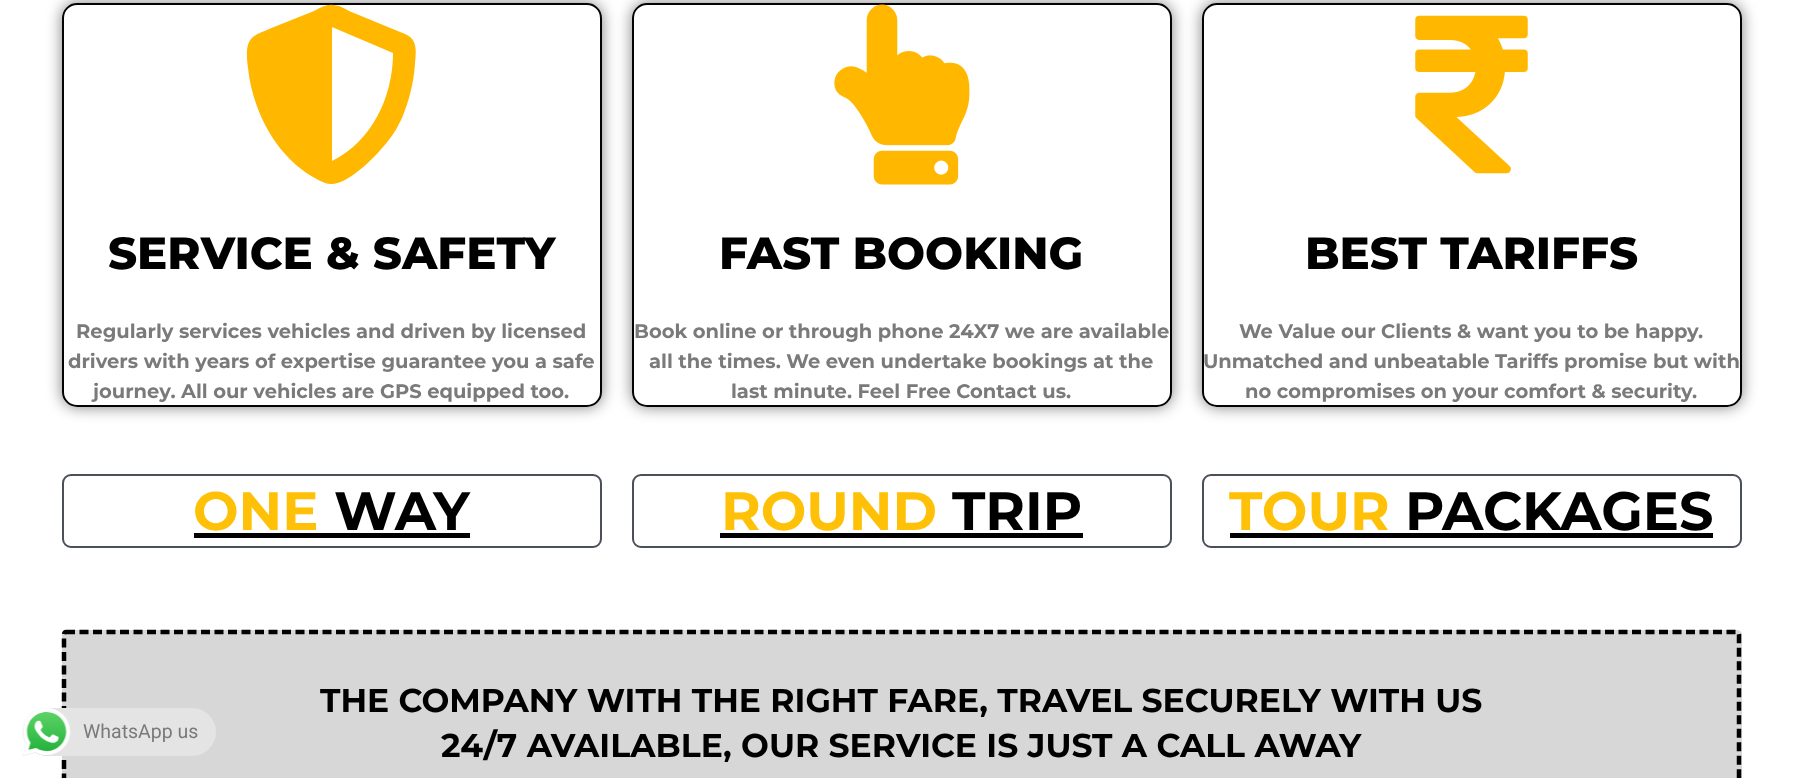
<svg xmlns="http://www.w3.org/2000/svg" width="1802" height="778">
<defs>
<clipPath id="clip1"><path d="M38 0h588v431h-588zm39 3h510c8.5 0 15 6.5 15 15v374c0 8.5-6.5 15-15 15h-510c-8.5 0-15-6.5-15-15v-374c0-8.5 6.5-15 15-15z" clip-rule="evenodd"/></clipPath>
<clipPath id="clip2"><path d="M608 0h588v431h-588zm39 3h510c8.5 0 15 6.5 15 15v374c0 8.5-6.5 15-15 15h-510c-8.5 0-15-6.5-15-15v-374c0-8.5 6.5-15 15-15z" clip-rule="evenodd"/></clipPath>
<clipPath id="clip3"><path d="M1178 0h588v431h-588zm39 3h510c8.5 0 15 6.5 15 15v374c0 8.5-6.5 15-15 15h-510c-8.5 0-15-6.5-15-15v-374c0-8.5 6.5-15 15-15z" clip-rule="evenodd"/></clipPath>
</defs>
<rect width="100%" height="100%" fill="#fff"/>
<g clip-path="url(#clip1)">
<rect x="62" y="3" width="540" height="404" rx="15" fill="#00000080" filter="blur(7.5px)"/>
</g>
<rect x="63" y="4" width="538" height="402" rx="14" fill="none" stroke="#030303" stroke-width="2"/>
<path d="M405 34c13 5 11 18 10 29c-1 19-6 38-13 55c-4 8-8 16-14 23c-10 13-44 50-63 42c-45-19-72-68-77-115c-1-8-3-22 3-29c4-5 12-7 18-10l45-18c6-3 13-7 19-6c5 0 13 4 16 6zm-73 127c40-20 61-64 61-108l-61-26z" fill="#ffb700"/>
<text x="108" y="269" style="font-family:Montserrat;font-size:45px;font-weight:800;fill:#000">SERVICE &amp; SAFETY</text>
<text x="76" y="338" style="font-family:Montserrat;font-size:19.5px;font-weight:bold;fill:#7a7a7a">Regularly services vehicles and driven by licensed</text>
<text x="68" y="368" style="font-family:Montserrat;font-size:19.5px;font-weight:bold;fill:#7a7a7a">drivers with years of expertise guarantee you a safe</text>
<text x="93" y="398" style="font-family:Montserrat;font-size:19.5px;font-weight:bold;fill:#7a7a7a">journey. All our vehicles are GPS equipped too.</text>
<g clip-path="url(#clip2)">
<rect x="632" y="3" width="540" height="404" rx="15" fill="#00000080" filter="blur(7.5px)"/>
</g>
<rect x="633" y="4" width="538" height="402" rx="14" fill="none" stroke="#030303" stroke-width="2"/>
<image x="834" y="4" width="136" height="181" href="media/1.png"/>
<text x="719" y="269" style="font-family:Montserrat;font-size:45px;font-weight:800;fill:#000">FAST BOOKING</text>
<text x="634" y="338" style="font-family:Montserrat;font-size:19.5px;font-weight:bold;fill:#7a7a7a">Book online or through phone 24X7 we are available</text>
<text x="649" y="368" style="font-family:Montserrat;font-size:19.5px;font-weight:bold;fill:#7a7a7a">all the times. We even undertake bookings at the</text>
<text x="731" y="398" style="font-family:Montserrat;font-size:19.5px;font-weight:bold;fill:#7a7a7a">last minute. Feel Free Contact us.</text>
<g clip-path="url(#clip3)">
<rect x="1202" y="3" width="540" height="404" rx="15" fill="#00000080" filter="blur(7.5px)"/>
</g>
<rect x="1203" y="4" width="538" height="402" rx="14" fill="none" stroke="#030303" stroke-width="2"/>
<image x="1415" y="15" width="113" height="159" href="media/2.png"/>
<text x="1305" y="269" style="font-family:Montserrat;font-size:45px;font-weight:800;fill:#000">BEST TARIFFS</text>
<text x="1239" y="338" style="font-family:Montserrat;font-size:19.5px;font-weight:bold;fill:#7a7a7a">We Value our Clients &amp; want you to be happy.</text>
<text x="1203" y="368" style="font-family:Montserrat;font-size:19.5px;font-weight:bold;fill:#7a7a7a">Unmatched and unbeatable Tariffs promise but with</text>
<text x="1245" y="398" style="font-family:Montserrat;font-size:19.5px;font-weight:bold;fill:#7a7a7a">no compromises on your comfort &amp; security.</text>
<rect x="63" y="475" width="538" height="72" rx="8" fill="none" stroke="#4b4f58" stroke-width="2"/>
<text x="193" y="530" style="font-family:Montserrat;font-size:54px;font-weight:bold;fill:#ffc107">ONE</text>
<rect x="194" y="533" width="276" height="5" fill="#000"/>
<text x="334" y="530" style="font-family:Montserrat;font-size:54px;font-weight:bold;fill:#000">WAY</text>
<rect x="633" y="475" width="538" height="72" rx="8" fill="none" stroke="#4b4f58" stroke-width="2"/>
<text x="721" y="530" style="font-family:Montserrat;font-size:54px;font-weight:bold;fill:#ffc107">ROUND</text>
<rect x="720" y="533" width="363" height="5" fill="#000"/>
<text x="952" y="530" style="font-family:Montserrat;font-size:54px;font-weight:bold;fill:#000">TRIP</text>
<rect x="1203" y="475" width="538" height="72" rx="8" fill="none" stroke="#4b4f58" stroke-width="2"/>
<text x="1229" y="530" style="font-family:Montserrat;font-size:54px;font-weight:bold;fill:#ffc107">TOUR</text>
<rect x="1230" y="533" width="483" height="5" fill="#000"/>
<text x="1405" y="530" style="font-family:Montserrat;font-size:54px;font-weight:bold;fill:#000">PACKAGES</text>
<rect x="62" y="630" width="1680" height="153" rx="5" fill="#d7d7d7"/>
<path d="M66 632h1671c1 0 2 1.5 2 2.5v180c0 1-1 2.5-2 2.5h-1671c-1 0-2-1.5-2-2.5v-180c0-1 1-2.5 2-2.5z" fill="none" stroke="#000" stroke-width="4.5" stroke-dasharray="9 4.5"/>
<text x="320" y="712" style="font-family:Montserrat;font-size:33px;font-weight:bold;fill:#000">THE COMPANY WITH THE RIGHT FARE, TRAVEL SECURELY WITH US</text>
<text x="441" y="757" style="font-family:Montserrat;font-size:33px;font-weight:bold;fill:#000">24/7 AVAILABLE, OUR SERVICE IS JUST A CALL AWAY</text>
<rect x="23" y="708" width="193" height="48" rx="24" fill="#e4e4e4"/>
<image x="22" y="708" width="49" height="48" href="media/3.png"/>
<text x="83" y="738" style="font-family:Roboto;font-size:19.5px;fill:#7a7a7a">WhatsApp us</text>
</svg>
